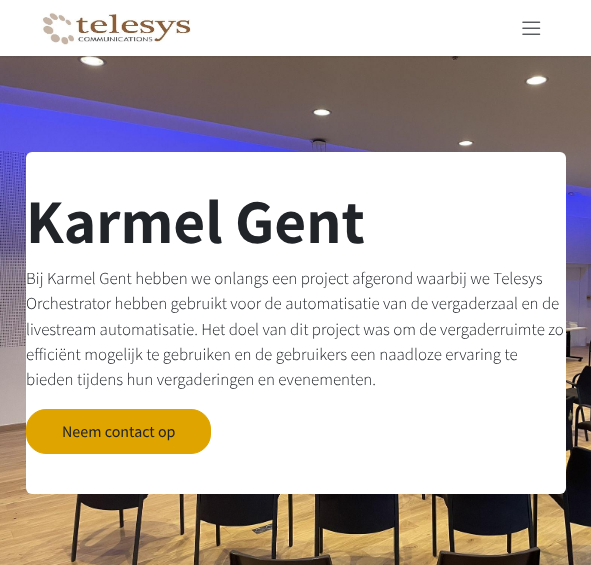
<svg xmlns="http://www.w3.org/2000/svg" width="591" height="565">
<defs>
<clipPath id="clip1"><rect x="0" y="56" width="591" height="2"/></clipPath>
</defs>
<rect width="100%" height="100%" fill="#fff"/>
<image x="0" y="56" width="591" height="509" href="media/3.png"/>
<g clip-path="url(#clip1)">
<rect y="1" width="591" height="56" fill="#0000001a" filter="blur(1.5px)"/>
</g>
<image x="41" y="12" width="150" height="33" href="media/1.png"/>
<image x="522" y="21" width="19" height="14" href="media/2.png"/>
<rect x="26" y="152" width="540" height="342" rx="6" fill="#fff"/>
<text x="26" y="243" style="font-family:Assistant;font-size:62px;font-weight:bold;fill:#212529">Karmel Gent</text>
<text x="26" y="284" style="font-family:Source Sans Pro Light;font-size:16.9px;font-weight:300;fill:#212529">Bij Karmel Gent hebben we onlangs een project afgerond waarbij we Telesys</text>
<text x="26" y="309" style="font-family:Source Sans Pro Light;font-size:16.9px;font-weight:300;fill:#212529">Orchestrator hebben gebruikt voor de automatisatie van de vergaderzaal en de</text>
<text x="26" y="335" style="font-family:Source Sans Pro Light;font-size:16.9px;font-weight:300;fill:#212529">livestream automatisatie. Het doel van dit project was om de vergaderruimte zo</text>
<text x="26" y="360" style="font-family:Source Sans Pro Light;font-size:16.9px;font-weight:300;fill:#212529">efficiënt mogelijk te gebruiken en de gebruikers een naadloze ervaring te</text>
<text x="26" y="385" style="font-family:Source Sans Pro Light;font-size:16.9px;font-weight:300;fill:#212529">bieden tijdens hun vergaderingen en evenementen.</text>
<rect x="26.5" y="409.5" width="184" height="44" rx="19.5" fill="#dfa400" stroke="#dfa400"/>
<text x="62" y="437" style="font-family:Source Sans Pro;font-size:16px;fill:#212529">Neem contact op</text>
</svg>
